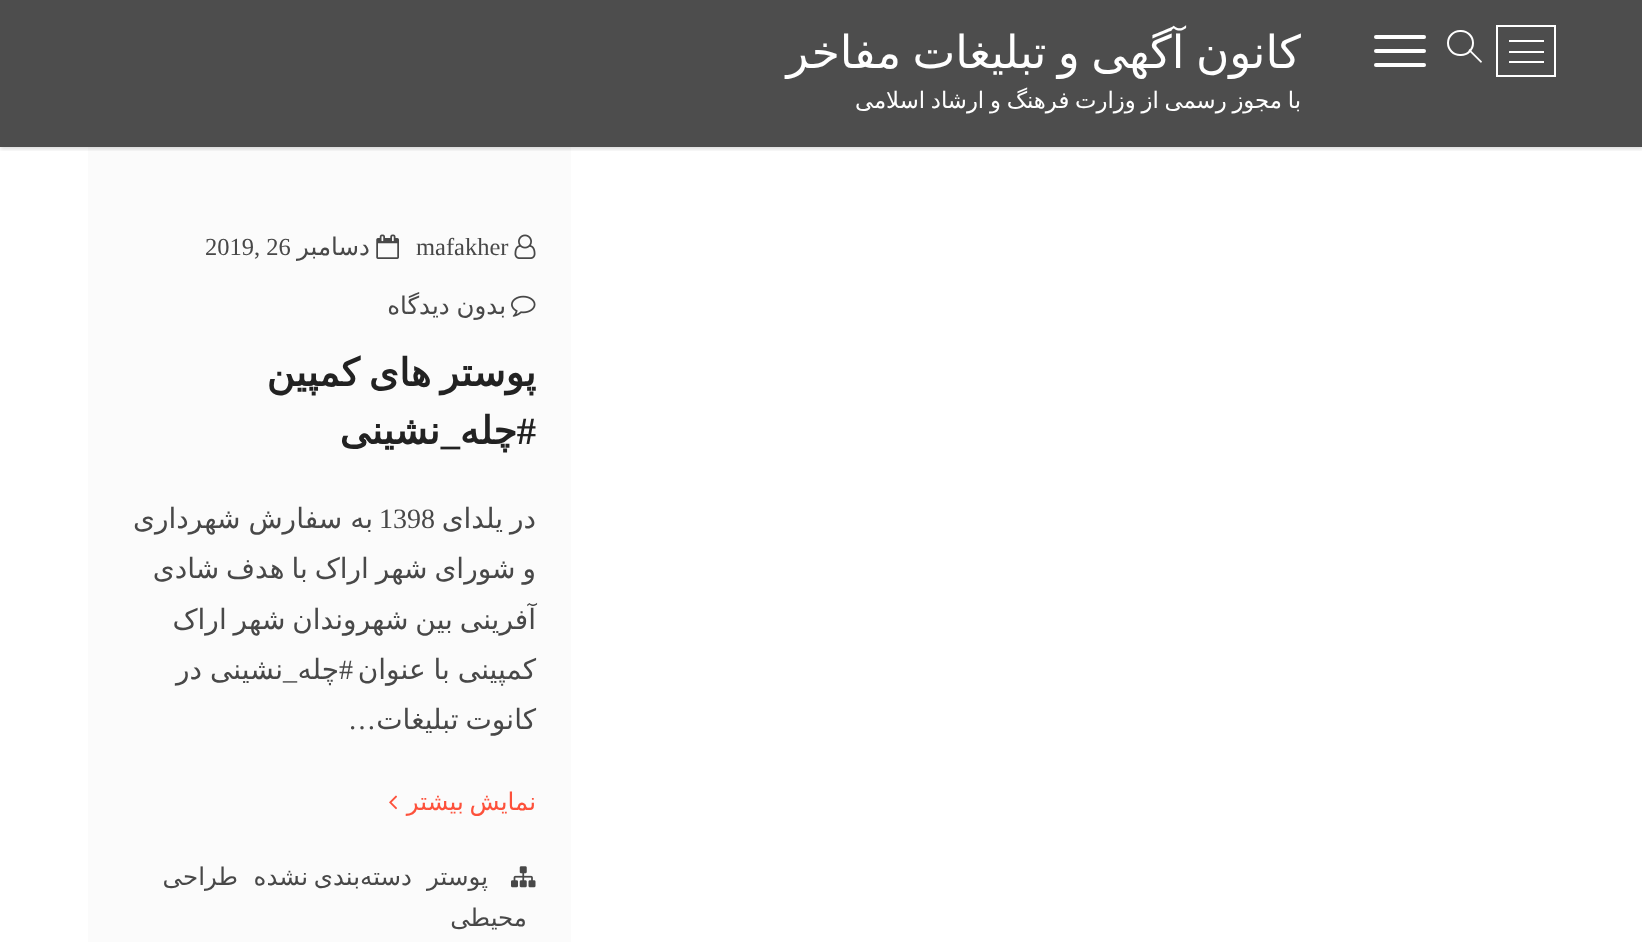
<svg xmlns="http://www.w3.org/2000/svg" width="1642" height="942">
<defs>
<clipPath id="clip1"><rect x="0" y="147" width="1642" height="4"/></clipPath>
</defs>
<rect width="100%" height="100%" fill="#fff"/>
<rect width="1642" height="147" fill="#4d4d4d"/>
<rect x="88" y="147" width="483" height="795" fill="#fbfbfb"/>
<g clip-path="url(#clip1)">
<rect y="2" width="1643" height="147" fill="#00000026" filter="blur(2px)"/>
</g>
<rect x="1497" y="26" width="58" height="50" fill="none" stroke="#fff" stroke-width="2"/>
<rect x="1509" y="51" width="35" height="2" fill="#fff"/>
<rect x="1509" y="40" width="35" height="2" fill="#fff"/>
<rect x="1509" y="61" width="35" height="2" fill="#fff"/>
<rect x="1448" y="31" width="25" height="24" rx="12" fill="none" stroke="#fff" stroke-width="2"/>
<path d="M1468.5 50.5l1-1.5l12.5 12.5l-1 1.5z" fill="#fff"/>
<rect x="1374" y="49" width="52" height="4" rx="2" fill="#fff"/>
<rect x="1374" y="35" width="52" height="4" rx="2" fill="#fff"/>
<rect x="1374" y="63" width="52" height="4" rx="2" fill="#fff"/>
<text x="1301" y="68" word-spacing="-3" style="font-family:DejaVu Sans;font-size:45.5px;direction:rtl;fill:#fff">کانون آگهی و تبلیغات مفاخر</text>
<text x="1301" y="108" word-spacing="-1.5" style="font-family:DejaVu Sans;font-size:22.75px;direction:rtl;fill:#fff">با مجوز رسمی از وزارت فرهنگ و ارشاد اسلامی</text>
<image x="514" y="234" width="22" height="25" href="media/1.png"/>
<text x="416" y="255" style="font-family:Liberation Serif;font-size:24.5px;fill:#484848">mafakher</text>
<image x="376" y="234" width="23" height="25" href="media/2.png"/>
<text x="370" y="255" style="font-family:DejaVu Sans;font-size:24.5px;direction:rtl;fill:#484848">دسامبر</text>
<text x="205" y="255" style="font-family:Liberation Serif;font-size:24.5px;fill:#484848">2019, 26</text>
<image x="511" y="295" width="25" height="22" href="media/3.png"/>
<text x="506" y="314" word-spacing="-1" style="font-family:DejaVu Sans;font-size:24.5px;direction:rtl;fill:#484848">بدون دیدگاه</text>
<text x="536" y="386" word-spacing="-3" style="font-family:DejaVu Sans;font-size:38.5px;font-weight:bold;direction:rtl;fill:#222">پوستر های کمپین</text>
<text x="536" y="444" style="font-family:Liberation Serif;font-size:38.5px;font-weight:bold;direction:rtl;fill:#222">#</text>
<text x="517" y="444" style="font-family:DejaVu Sans;font-size:38.5px;font-weight:bold;direction:rtl;fill:#222">چله</text>
<text x="460" y="444" style="font-family:Liberation Serif;font-size:38.5px;font-weight:bold;direction:rtl;fill:#222">_</text>
<text x="440" y="444" style="font-family:DejaVu Sans;font-size:38.5px;font-weight:bold;direction:rtl;fill:#222">نشینی</text>
<text x="536" y="528" word-spacing="-2" style="font-family:DejaVu Sans;font-size:28px;direction:rtl;fill:#484848">در یلدای</text>
<text x="379" y="528" style="font-family:Liberation Serif;font-size:28px;fill:#484848">1398</text>
<text x="373" y="528" word-spacing="-1" style="font-family:DejaVu Sans;font-size:28px;direction:rtl;fill:#484848">به سفارش شهرداری</text>
<text x="536" y="578" word-spacing="-2" style="font-family:DejaVu Sans;font-size:28px;direction:rtl;fill:#484848">و شورای شهر اراک با هدف شادی</text>
<text x="536" y="629" word-spacing="-2" style="font-family:DejaVu Sans;font-size:28px;direction:rtl;fill:#484848">آفرینی بین شهروندان شهر اراک</text>
<text x="536" y="679" word-spacing="-1" style="font-family:DejaVu Sans;font-size:28px;direction:rtl;fill:#484848">کمپینی با عنوان</text>
<text x="353" y="679" style="font-family:Liberation Serif;font-size:28px;direction:rtl;fill:#484848">#</text>
<text x="339" y="679" style="font-family:DejaVu Sans;font-size:28px;direction:rtl;fill:#484848">چله</text>
<text x="297" y="679" style="font-family:Liberation Serif;font-size:28px;direction:rtl;fill:#484848">_</text>
<text x="283" y="679" word-spacing="-1" style="font-family:DejaVu Sans;font-size:28px;direction:rtl;fill:#484848">نشینی در</text>
<text x="536" y="729" word-spacing="-2" style="font-family:DejaVu Sans;font-size:28px;direction:rtl;fill:#484848">کانوت تبلیغات</text>
<text x="376" y="729" style="font-family:Liberation Serif;font-size:28px;direction:rtl;fill:#484848">…</text>
<text x="536" y="810" word-spacing="-2" style="font-family:DejaVu Sans;font-size:24.5px;direction:rtl;fill:#fd513b">نمایش بیشتر</text>
<image x="389" y="795" width="8" height="15" href="media/4.png"/>
<image x="511" y="866" width="25" height="22" href="media/5.png"/>
<text x="488" y="885" style="font-family:DejaVu Sans;font-size:24.5px;direction:rtl;fill:#484848">پوستر</text>
<text x="412" y="885" style="font-family:DejaVu Sans;font-size:24.5px;direction:rtl;fill:#484848">دسته</text>
<text x="360" y="885" word-spacing="-2" style="font-family:DejaVu Sans;font-size:24.5px;direction:rtl;fill:#484848">بندی نشده</text>
<text x="238" y="885" style="font-family:DejaVu Sans;font-size:24.5px;direction:rtl;fill:#484848">طراحی</text>
<text x="527" y="926" style="font-family:DejaVu Sans;font-size:24.5px;direction:rtl;fill:#484848">محیطی</text>
</svg>
